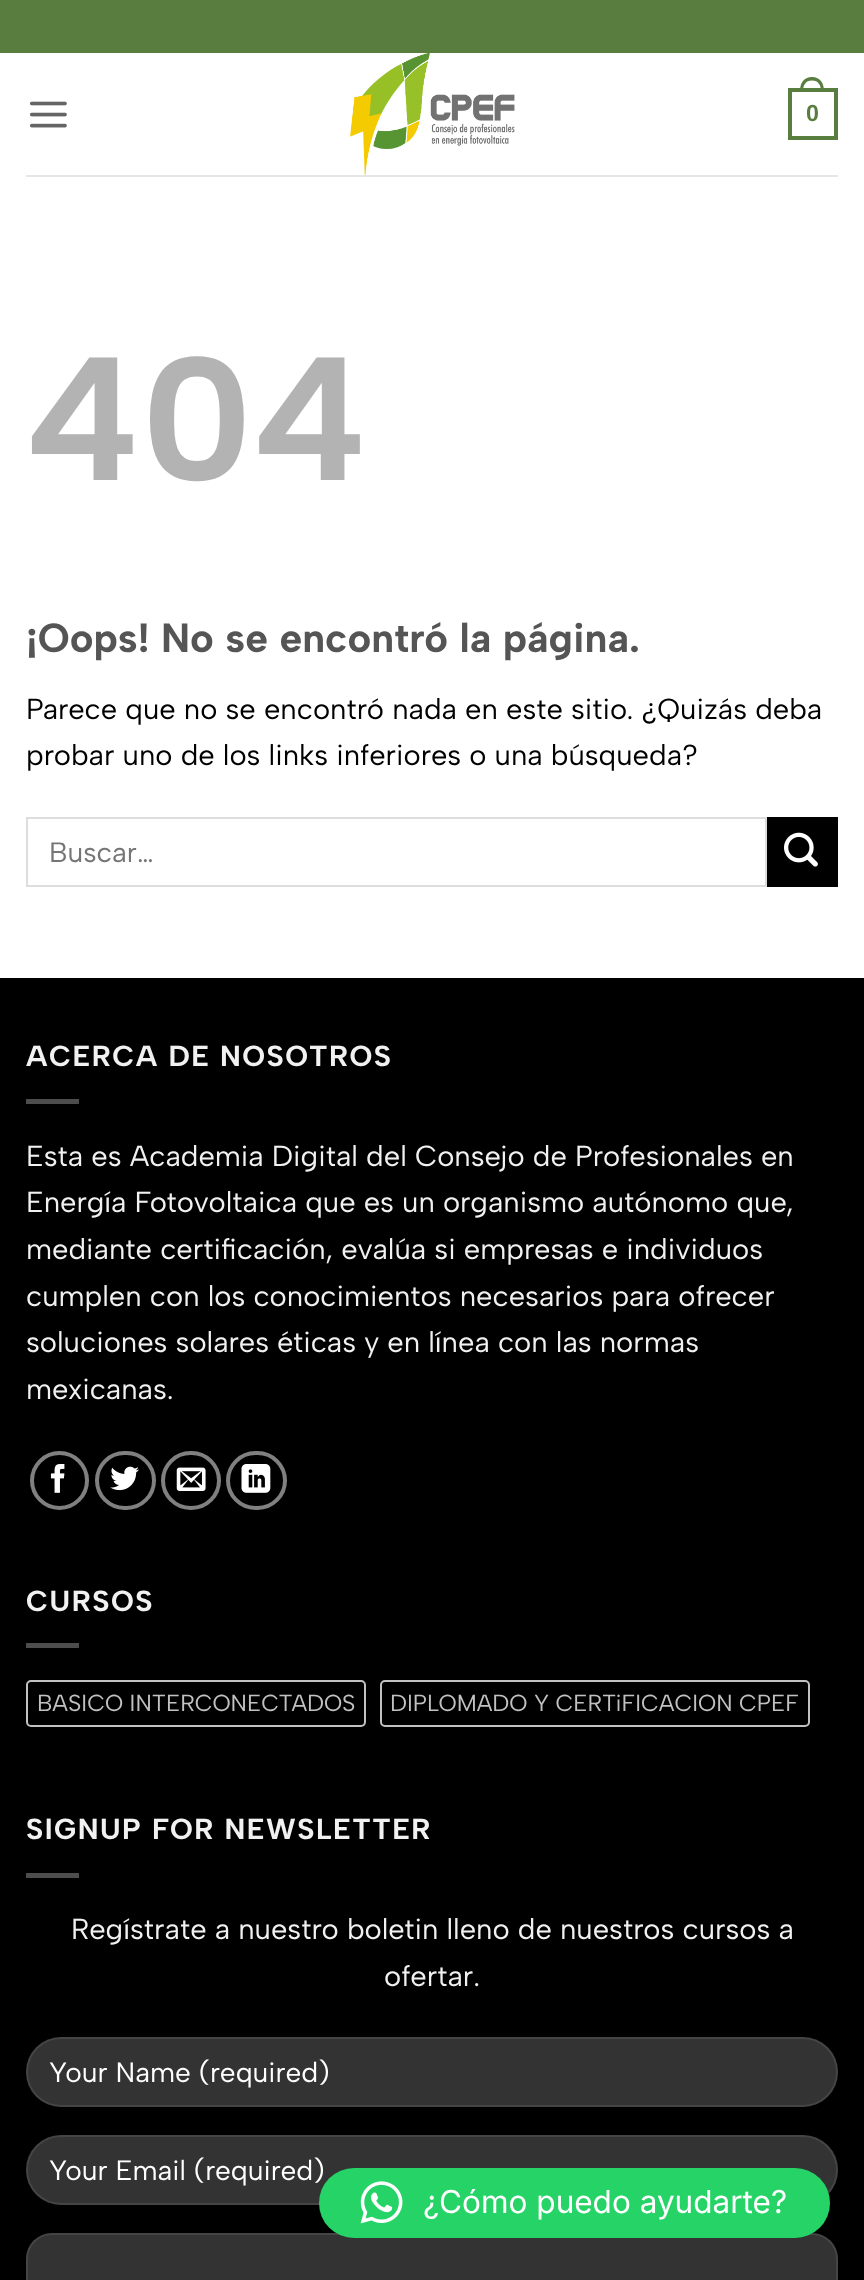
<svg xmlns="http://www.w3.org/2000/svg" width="864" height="2280">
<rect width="100%" height="100%" fill="#fff"/>
<rect width="864" height="53" fill="#597d3f"/>
<image x="29" y="101" width="38" height="27" href="media/1.png"/>
<image x="350" y="53" width="165" height="122" href="media/2.png"/>
<rect x="790" y="90" width="46" height="48" fill="none" stroke="#597d3f" stroke-width="4"/>
<path d="M812 77c8.5 0 12 6.5 12 14h-24c0-7.5 3.5-14 12-14zm0 3.5c6.5 0 9 5 9 10.5h-18c0-5.5 2.5-10.5 9-10.5z" fill="#597d3f" fill-rule="evenodd"/>
<text x="806" y="121" style="font-family:Liberation Sans;font-size:23.25px;font-weight:bold;fill:#597d3f">0</text>
<rect x="26" y="175" width="812" height="2" fill="#e6e6e6"/>
<text x="26" y="480" style="font-family:Albert Sans;font-size:175px;font-weight:bold;fill:#b3b3b3">404</text>
<text x="26" y="652" style="font-family:Albert Sans;font-size:40.75px;font-weight:bold;fill:#555">¡Oops! No se encontró la página.</text>
<text x="26" y="719" style="font-family:Albert Sans;font-size:29.1px;fill:#000">Parece que no se encontró nada en este sitio. ¿Quizás deba</text>
<text x="26" y="765" style="font-family:Albert Sans;font-size:29.1px;fill:#000">probar uno de los links inferiores o una búsqueda?</text>
<rect x="27" y="818" width="739" height="68" fill="none" stroke="#ddd" stroke-width="2"/>
<text x="49" y="862" style="font-family:Albert Sans;font-size:28px;fill:#757575">Buscar…</text>
<rect x="767" y="817" width="71" height="70" fill="#000"/>
<image x="784" y="832" width="34" height="35" href="media/3.png"/>
<rect y="978" width="864" height="1302" fill="#000"/>
<text x="26" y="1066" style="font-family:Albert Sans;font-size:29.1px;font-weight:bold;letter-spacing:1.5px;fill:#f1f1f1">ACERCA DE NOSOTROS</text>
<rect x="26" y="1099" width="53" height="5" fill="#4d4d4d"/>
<text x="26" y="1166" style="font-family:Albert Sans;font-size:29.1px;fill:#f1f1f1">Esta es Academia Digital del Consejo de Profesionales en</text>
<text x="26" y="1212" style="font-family:Albert Sans;font-size:29.1px;fill:#f1f1f1">Energía Fotovoltaica que es un organismo autónomo que,</text>
<text x="26" y="1259" style="font-family:Albert Sans;font-size:29.1px;fill:#f1f1f1">mediante certificación, evalúa si empresas e individuos</text>
<text x="26" y="1306" style="font-family:Albert Sans;font-size:29.1px;fill:#f1f1f1">cumplen con los conocimientos necesarios para ofrecer</text>
<text x="26" y="1352" style="font-family:Albert Sans;font-size:29.1px;fill:#f1f1f1">soluciones solares éticas y en línea con las normas</text>
<text x="26" y="1399" style="font-family:Albert Sans;font-size:29.1px;fill:#f1f1f1">mexicanas.</text>
<circle cx="59.5" cy="1480.5" r="27.5" fill="none" stroke="#808080" stroke-width="4"/>
<image x="50" y="1464" width="15" height="29" href="media/4.png"/>
<rect x="97" y="1453" width="57" height="55" rx="27.5" fill="none" stroke="#808080" stroke-width="4"/>
<image x="110" y="1466" width="29" height="25" href="media/5.png"/>
<rect x="163" y="1453" width="56" height="55" rx="27.5" fill="none" stroke="#808080" stroke-width="4"/>
<image x="176" y="1467" width="30" height="24" href="media/6.png"/>
<rect x="228" y="1453" width="57" height="55" rx="27.5" fill="none" stroke="#808080" stroke-width="4"/>
<image x="241" y="1464" width="30" height="29" href="media/7.png"/>
<text x="26" y="1611" style="font-family:Albert Sans;font-size:29.1px;font-weight:bold;letter-spacing:1.5px;fill:#f1f1f1">CURSOS</text>
<rect x="26" y="1643" width="53" height="5" fill="#4d4d4d"/>
<rect x="27" y="1681" width="338" height="45" rx="4" fill="none" stroke="#c1c1c1" stroke-width="2"/>
<text x="37" y="1711" style="font-family:Albert Sans;font-size:23.25px;fill:#c1c1c1">BASICO INTERCONECTADOS</text>
<rect x="381" y="1681" width="428" height="45" rx="4" fill="none" stroke="#c1c1c1" stroke-width="2"/>
<text x="390" y="1711" style="font-family:Albert Sans;font-size:23.25px;fill:#c1c1c1">DIPLOMADO Y CERTiFICACION CPEF</text>
<text x="26" y="1839" style="font-family:Albert Sans;font-size:29.1px;font-weight:bold;letter-spacing:1.5px;fill:#f1f1f1">SIGNUP FOR NEWSLETTER</text>
<rect x="26" y="1873" width="53" height="5" fill="#4d4d4d"/>
<text x="71" y="1939" style="font-family:Albert Sans;font-size:29.1px;fill:#f1f1f1">Regístrate a nuestro boletin lleno de nuestros cursos a</text>
<text x="384" y="1986" style="font-family:Albert Sans;font-size:29.1px;fill:#f1f1f1">ofertar.</text>
<rect x="26" y="2037" width="812" height="70" rx="35" fill="#333"/>
<rect x="27" y="2038" width="810" height="68" rx="34" fill="none" stroke="#ffffff17" stroke-width="2"/>
<text x="49" y="2082" style="font-family:Albert Sans;font-size:28px;fill:#fff">Your Name (required)</text>
<rect x="26" y="2135" width="812" height="70" rx="35" fill="#333"/>
<rect x="27" y="2136" width="810" height="68" rx="34" fill="none" stroke="#ffffff17" stroke-width="2"/>
<text x="49" y="2180" style="font-family:Albert Sans;font-size:28px;fill:#fff">Your Email (required)</text>
<rect x="26" y="2233" width="812" height="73" rx="26" fill="#333"/>
<rect x="27" y="2234" width="810" height="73" rx="25" fill="none" stroke="#ffffff17" stroke-width="2"/>
<rect x="319" y="2168" width="511" height="70" rx="35" fill="#25d366"/>
<image x="360" y="2181" width="43" height="43" href="media/8.png"/>
<text x="423" y="2213" style="font-family:Inter;font-size:31.5px;fill:#fff">¿Cómo puedo ayudarte?</text>
</svg>
